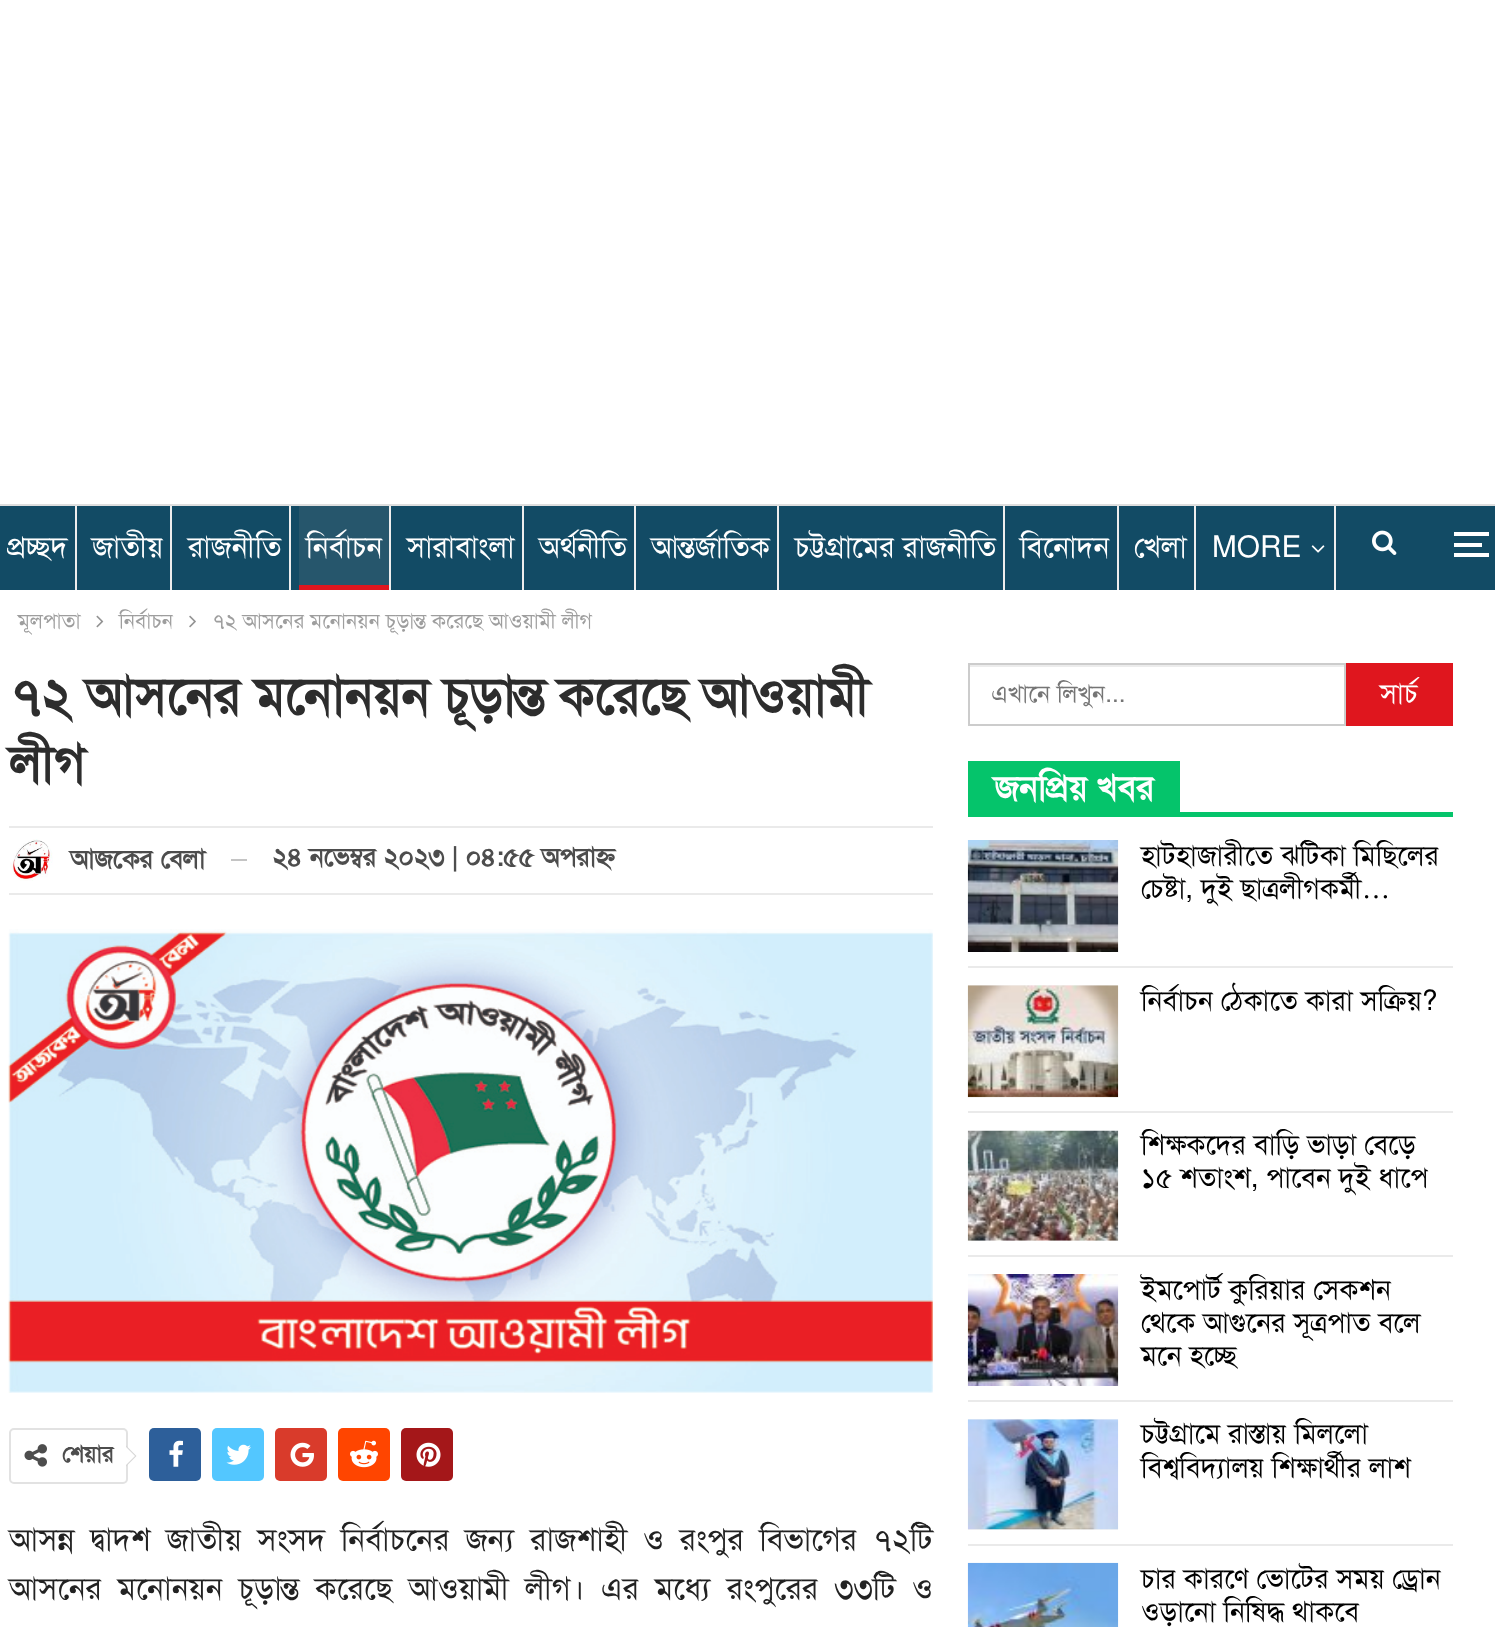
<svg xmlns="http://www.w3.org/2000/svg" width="1495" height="1627">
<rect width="100%" height="100%" fill="#fff"/>
<rect y="506" width="1495" height="84" fill="#124b65"/>
<rect y="504" width="1495" height="2" fill="#dedede"/>
<rect x="75" y="506" width="2" height="84" fill="#eee"/>
<text x="7" y="557" style="font-family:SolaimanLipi;font-size:29.75px;fill:#fff">প্রচ্ছদ</text>
<rect x="170" y="506" width="2" height="84" fill="#eee"/>
<text x="92" y="557" style="font-family:SolaimanLipi;font-size:29.75px;fill:#fff">জাতীয়</text>
<rect x="289" y="506" width="2" height="84" fill="#eee"/>
<text x="188" y="557" style="font-family:SolaimanLipi;font-size:29.75px;fill:#fff">রাজনীতি</text>
<rect x="299" y="506" width="90" height="79" fill="#26566c"/>
<rect x="389" y="506" width="2" height="84" fill="#eee"/>
<text x="306" y="557" style="font-family:SolaimanLipi;font-size:29.75px;fill:#fff">নির্বাচন</text>
<rect x="299" y="585" width="90" height="5" fill="#df161e"/>
<rect x="522" y="506" width="2" height="84" fill="#eee"/>
<text x="407" y="557" style="font-family:SolaimanLipi;font-size:29.75px;fill:#fff">সারাবাংলা</text>
<rect x="634" y="506" width="2" height="84" fill="#eee"/>
<text x="539" y="557" style="font-family:SolaimanLipi;font-size:29.75px;fill:#fff">অর্থনীতি</text>
<rect x="777" y="506" width="2" height="84" fill="#eee"/>
<text x="651" y="557" style="font-family:SolaimanLipi;font-size:29.75px;fill:#fff">আন্তর্জাতিক</text>
<rect x="1003" y="506" width="2" height="84" fill="#eee"/>
<text x="795" y="557" style="font-family:SolaimanLipi;font-size:29.75px;fill:#fff">চট্টগ্রামের রাজনীতি</text>
<rect x="1117" y="506" width="2" height="84" fill="#eee"/>
<text x="1020" y="557" style="font-family:SolaimanLipi;font-size:29.75px;fill:#fff">বিনোদন</text>
<rect x="1194" y="506" width="2" height="84" fill="#eee"/>
<text x="1134" y="557" style="font-family:SolaimanLipi;font-size:29.75px;fill:#fff">খেলা</text>
<rect x="1334" y="506" width="2" height="84" fill="#eee"/>
<text x="1212" y="557" style="font-family:SolaimanLipi;font-size:29.75px;fill:#fff">MORE</text>
<image x="1311" y="545" width="14" height="8" href="media/1.png"/>
<image x="1372" y="530" width="25" height="25" href="media/2.png"/>
<rect x="1454" y="543" width="28" height="4" fill="#fff"/>
<rect x="1454" y="532" width="35" height="4" fill="#fff"/>
<rect x="1454" y="553" width="35" height="4" fill="#fff"/>
<text x="18" y="628" style="font-family:SolaimanLipi;font-size:21px;fill:#9e9e9e">মূলপাতা</text>
<image x="96" y="615" width="8" height="13" href="media/3.png"/>
<text x="119" y="628" style="font-family:SolaimanLipi;font-size:21px;fill:#9e9e9e">নির্বাচন</text>
<image x="189" y="615" width="7" height="13" href="media/4.png"/>
<text x="212" y="628" style="font-family:SolaimanLipi;font-size:21px;fill:#9e9e9e">৭২ আসনের মনোনয়ন চূড়ান্ত করেছে আওয়ামী লীগ</text>
<text x="9" y="714" style="font-family:SolaimanLipi;font-size:52.5px;font-weight:bold;fill:#2d2d2d">৭২ আসনের মনোনয়ন চূড়ান্ত করেছে আওয়ামী</text>
<text x="9" y="782" style="font-family:SolaimanLipi;font-size:52.5px;font-weight:bold;fill:#2d2d2d">লীগ</text>
<rect x="9" y="826" width="924" height="2" fill="#eaeaea"/>
<rect x="9" y="893" width="924" height="2" fill="#eaeaea"/>
<image x="10" y="839" width="43" height="42" href="media/5.png"/>
<text x="70" y="868" word-spacing="1" style="font-family:SolaimanLipi;font-size:26.25px;font-weight:bold;letter-spacing:-0.35px;fill:#4d4d4d">আজকের বেলা</text>
<rect x="231" y="859" width="16" height="2" fill="#c4c4c4"/>
<text x="272" y="866" word-spacing="0.5" style="font-family:SolaimanLipi;font-size:26.25px;font-weight:bold;letter-spacing:-0.35px;fill:#4d4d4d">২৪ নভেম্বর ২০২৩ | ০৪:৫৫ অপরাহ্ণ</text>
<image x="8" y="929" width="925" height="464" href="media/6.png"/>
<rect x="10" y="1429" width="117" height="54" rx="4" fill="none" stroke="#e2e2e2" stroke-width="2"/>
<image x="24" y="1444" width="23" height="23" href="media/7.png"/>
<text x="62" y="1462" style="font-family:SolaimanLipi;font-size:23px;font-weight:bold;fill:#4d4d4d">শেয়ার</text>
<path d="M126 1466.5v-21l10.5 10.5z" fill="#d7d7d7"/>
<path d="M126 1465v-18l9 9z" fill="#fff"/>
<rect x="149" y="1428" width="52" height="53" rx="5" fill="#2d5f9a"/>
<image x="169" y="1440" width="14" height="27" href="media/8.png"/>
<rect x="212" y="1428" width="52" height="53" rx="5" fill="#53c7ff"/>
<image x="226" y="1444" width="25" height="21" href="media/9.png"/>
<rect x="275" y="1428" width="52" height="53" rx="5" fill="#d93b2b"/>
<image x="290" y="1442" width="24" height="25" href="media/10.png"/>
<rect x="338" y="1428" width="52" height="53" rx="5" fill="#ff4500"/>
<image x="350" y="1440" width="28" height="28" href="media/11.png"/>
<rect x="401" y="1428" width="52" height="53" rx="5" fill="#a41719"/>
<image x="416" y="1442" width="25" height="25" href="media/12.png"/>
<text x="9" y="1550" word-spacing="7" style="font-family:SolaimanLipi;font-size:31.5px;fill:#222">আসন্ন দ্বাদশ জাতীয় সংসদ নির্বাচনের জন্য রাজশাহী ও রংপুর বিভাগের ৭২টি</text>
<text x="9" y="1599" word-spacing="7.5" style="font-family:SolaimanLipi;font-size:31.5px;fill:#222">আসনের মনোনয়ন চূড়ান্ত করেছে আওয়ামী লীগ। এর মধ্যে রংপুরের ৩৩টি ও</text>
<rect x="970" y="665" width="374" height="2" fill="#ececec"/>
<rect x="969" y="664" width="376" height="61" fill="none" stroke="#ccc" stroke-width="2"/>
<text x="991" y="702" style="font-family:SolaimanLipi;font-size:24.5px;fill:#757575">এখানে লিখুন...</text>
<rect x="1346" y="663" width="107" height="63" fill="#df161e"/>
<text x="1380" y="703" style="font-family:SolaimanLipi;font-size:28px;fill:#fff">সার্চ</text>
<rect x="968" y="761" width="212" height="56" fill="#05c46b"/>
<text x="994" y="800" style="font-family:SolaimanLipi;font-size:35px;font-weight:bold;fill:#fff">জনপ্রিয় খবর</text>
<rect x="1180" y="812" width="273" height="5" fill="#05c46b"/>
<rect x="968" y="966" width="485" height="2" fill="#eaeaea"/>
<image x="967" y="840" width="152" height="112" href="media/13.png"/>
<text x="1141" y="865" style="font-family:SolaimanLipi;font-size:28px;fill:#000">হাটহাজারীতে ঝটিকা মিছিলের</text>
<text x="1141" y="898" style="font-family:SolaimanLipi;font-size:28px;fill:#000">চেষ্টা, দুই ছাত্রলীগকর্মী</text>
<text x="1362" y="898" style="font-family:Liberation Serif;font-size:28px;fill:#000">…</text>
<rect x="968" y="1111" width="485" height="2" fill="#eaeaea"/>
<rect x="968" y="985" width="150" height="1" fill="#f5f5f5"/>
<image x="967" y="985" width="152" height="113" href="media/14.png"/>
<text x="1141" y="1010" style="font-family:SolaimanLipi;font-size:28px;fill:#000">নির্বাচন ঠেকাতে কারা সক্রিয়?</text>
<rect x="968" y="1255" width="485" height="2" fill="#eaeaea"/>
<rect x="968" y="1240" width="150" height="1" fill="#f5f5f5"/>
<image x="967" y="1130" width="152" height="111" href="media/15.png"/>
<text x="1141" y="1154" style="font-family:SolaimanLipi;font-size:28px;fill:#000">শিক্ষকদের বাড়ি ভাড়া বেড়ে</text>
<text x="1141" y="1187" style="font-family:SolaimanLipi;font-size:28px;fill:#000">১৫ শতাংশ, পাবেন দুই ধাপে</text>
<rect x="968" y="1400" width="485" height="2" fill="#eaeaea"/>
<image x="967" y="1274" width="152" height="112" href="media/16.png"/>
<text x="1141" y="1299" style="font-family:SolaimanLipi;font-size:28px;fill:#000">ইমপোর্ট কুরিয়ার সেকশন</text>
<text x="1141" y="1332" style="font-family:SolaimanLipi;font-size:28px;fill:#000">থেকে আগুনের সূত্রপাত বলে</text>
<text x="1141" y="1365" style="font-family:SolaimanLipi;font-size:28px;fill:#000">মনে হচ্ছে</text>
<rect x="968" y="1544" width="485" height="2" fill="#eaeaea"/>
<rect x="968" y="1419" width="150" height="111" fill="#f5f5f5"/>
<image x="967" y="1419" width="152" height="111" href="media/17.png"/>
<text x="1141" y="1443" style="font-family:SolaimanLipi;font-size:28px;fill:#000">চট্টগ্রামে রাস্তায় মিললো</text>
<text x="1141" y="1477" style="font-family:SolaimanLipi;font-size:28px;fill:#000">বিশ্ববিদ্যালয় শিক্ষার্থীর লাশ</text>
<image x="967" y="1562" width="152" height="65" href="media/18.png"/>
<text x="1141" y="1588" style="font-family:SolaimanLipi;font-size:28px;fill:#000">চার কারণে ভোটের সময় ড্রোন</text>
<text x="1141" y="1621" style="font-family:SolaimanLipi;font-size:28px;fill:#000">ওড়ানো নিষিদ্ধ থাকবে</text>
</svg>
